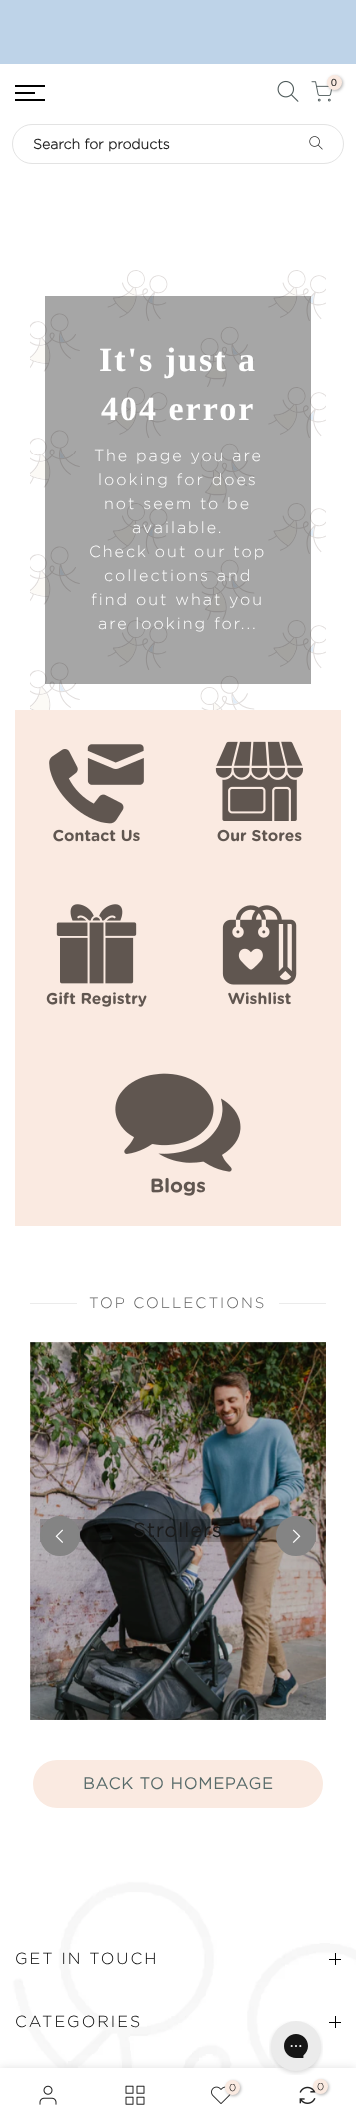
<svg xmlns="http://www.w3.org/2000/svg" width="356" height="2123">
<rect width="100%" height="100%" fill="#fff"/>
<rect width="356" height="64" fill="#bed3e8"/>
<image x="277" y="80" width="22" height="22" href="media/1.png"/>
<image x="311" y="81" width="21" height="21" href="media/2.png"/>
<rect x="328" y="76" width="15" height="15" rx="7.5" fill="#0000004d" filter="blur(1.5px)"/>
<circle cx="334.5" cy="82.5" r="7.5" fill="#faeae1"/>
<text x="331" y="86" style="font-family:Lato;font-size:10px;fill:#222">0</text>
<rect x="15" y="85" width="30" height="2" fill="#000"/>
<rect x="15" y="92" width="20" height="2" fill="#000"/>
<rect x="15" y="99" width="30" height="2" fill="#000"/>
<rect x="12.5" y="124.5" width="331" height="39" rx="19.5" fill="none" stroke="#e3e3e3"/>
<text x="33" y="149" style="font-family:Gotham;font-size:14px;font-weight:bold;fill:#222">Search for products</text>
<image x="309" y="136" width="14" height="14" href="media/3.png"/>
<image x="30" y="270" width="296" height="440" href="media/4.png"/>
<rect x="45" y="296" width="266" height="388" fill="#00000059"/>
<text x="99" y="371" style="font-family:Liberation Serif;font-size:34px;font-weight:bold;letter-spacing:2px;fill:#fff">It's just a</text>
<text x="101" y="420" style="font-family:Liberation Serif;font-size:34px;font-weight:bold;letter-spacing:2px;fill:#fff">404 error</text>
<text x="94" y="461" style="font-family:Gotham;font-size:16px;font-weight:300;letter-spacing:2px;fill:#fff">The page you are</text>
<text x="98" y="485" style="font-family:Gotham;font-size:16px;font-weight:300;letter-spacing:2px;fill:#fff">looking for does</text>
<text x="104" y="509" style="font-family:Gotham;font-size:16px;font-weight:300;letter-spacing:2px;fill:#fff">not seem to be</text>
<text x="132" y="533" style="font-family:Gotham;font-size:16px;font-weight:300;letter-spacing:2px;fill:#fff">available.</text>
<text x="89" y="557" style="font-family:Gotham;font-size:16px;font-weight:300;letter-spacing:2px;fill:#fff">Check out our top</text>
<text x="104" y="581" style="font-family:Gotham;font-size:16px;font-weight:300;letter-spacing:2px;fill:#fff">collections and</text>
<text x="91" y="605" style="font-family:Gotham;font-size:16px;font-weight:300;letter-spacing:2px;fill:#fff">find out what you</text>
<text x="98" y="629" style="font-family:Gotham;font-size:16px;font-weight:300;letter-spacing:2px;fill:#fff">are looking for...</text>
<rect x="15" y="710" width="326" height="516" fill="#faeae1"/>
<image x="49" y="744" width="95" height="98" href="media/5.png"/>
<image x="215" y="741" width="88" height="101" href="media/6.png"/>
<image x="46" y="904" width="101" height="103" href="media/7.png"/>
<image x="222" y="905" width="75" height="100" href="media/8.png"/>
<image x="115" y="1073" width="126" height="123" href="media/9.png"/>
<rect x="30" y="1303" width="47" height="1" fill="#ebebeb"/>
<text x="89" y="1308" style="font-family:Gotham;font-size:15px;font-weight:300;letter-spacing:2px;fill:#626262">TOP COLLECTIONS</text>
<rect x="279" y="1303" width="47" height="1" fill="#ebebeb"/>
<image x="30" y="1342" width="296" height="378" href="media/11.png"/>
<text x="133" y="1537" style="font-family:Gotham;font-size:19.5px;font-weight:bold;letter-spacing:1.25px;fill:#222">Strollers</text>
<rect x="40" y="1519" width="276" height="23" fill="#00000033"/>
<circle cx="60" cy="1536" r="19" fill="#848484" stroke="#848484" stroke-width="2"/>
<image x="55" y="1529" width="8" height="14" href="media/10.png"/>
<circle cx="296" cy="1536" r="19" fill="#848484" stroke="#848484" stroke-width="2"/>
<image x="292" y="1529" width="9" height="14" href="media/12.png"/>
<rect x="33" y="1760" width="290" height="48" rx="24" fill="#faeae1"/>
<text x="83" y="1789" style="font-family:Gotham;font-size:16px;font-weight:bold;letter-spacing:1px;fill:#586b6a">BACK TO HOMEPAGE</text>
<image x="0" y="1868" width="356" height="200" href="media/13.png"/>
<text x="15" y="1964" style="font-family:Gotham;font-size:16px;font-weight:300;letter-spacing:2px;fill:#000">GET IN TOUCH</text>
<rect x="335" y="1953" width="1" height="12" fill="#000"/>
<rect x="329" y="1959" width="12" height="1" fill="#000"/>
<text x="15" y="2027" style="font-family:Gotham;font-size:16px;font-weight:300;letter-spacing:2px;fill:#000">CATEGORIES</text>
<rect x="335" y="2016" width="1" height="12" fill="#000"/>
<rect x="329" y="2022" width="12" height="1" fill="#000"/>
<rect y="2068" width="356" height="55" fill="#0000001f" filter="blur(4.5px)"/>
<rect y="2068" width="356" height="55" fill="#fff"/>
<image x="299" y="2086" width="17" height="18" href="media/18.png"/>
<rect x="314" y="2080" width="15" height="15" rx="7.5" fill="#0000004d" filter="blur(1.5px)"/>
<image x="269" y="2021" width="54" height="54" href="media/14.png"/>
<image x="39" y="2085" width="18" height="20" href="media/15.png"/>
<image x="125" y="2085" width="20" height="20" href="media/16.png"/>
<image x="211" y="2086" width="20" height="18" href="media/17.png"/>
<rect x="226" y="2081" width="15" height="15" rx="7.5" fill="#0000004d" filter="blur(1.5px)"/>
<circle cx="232.5" cy="2087.5" r="7.5" fill="#faeae1"/>
<text x="229" y="2091" style="font-family:Gotham;font-size:10px;font-weight:300;fill:#000">0</text>
<circle cx="320.5" cy="2086.5" r="7.5" fill="#faeae1"/>
<text x="317" y="2090" style="font-family:Gotham;font-size:10px;font-weight:300;fill:#000">0</text>
</svg>
